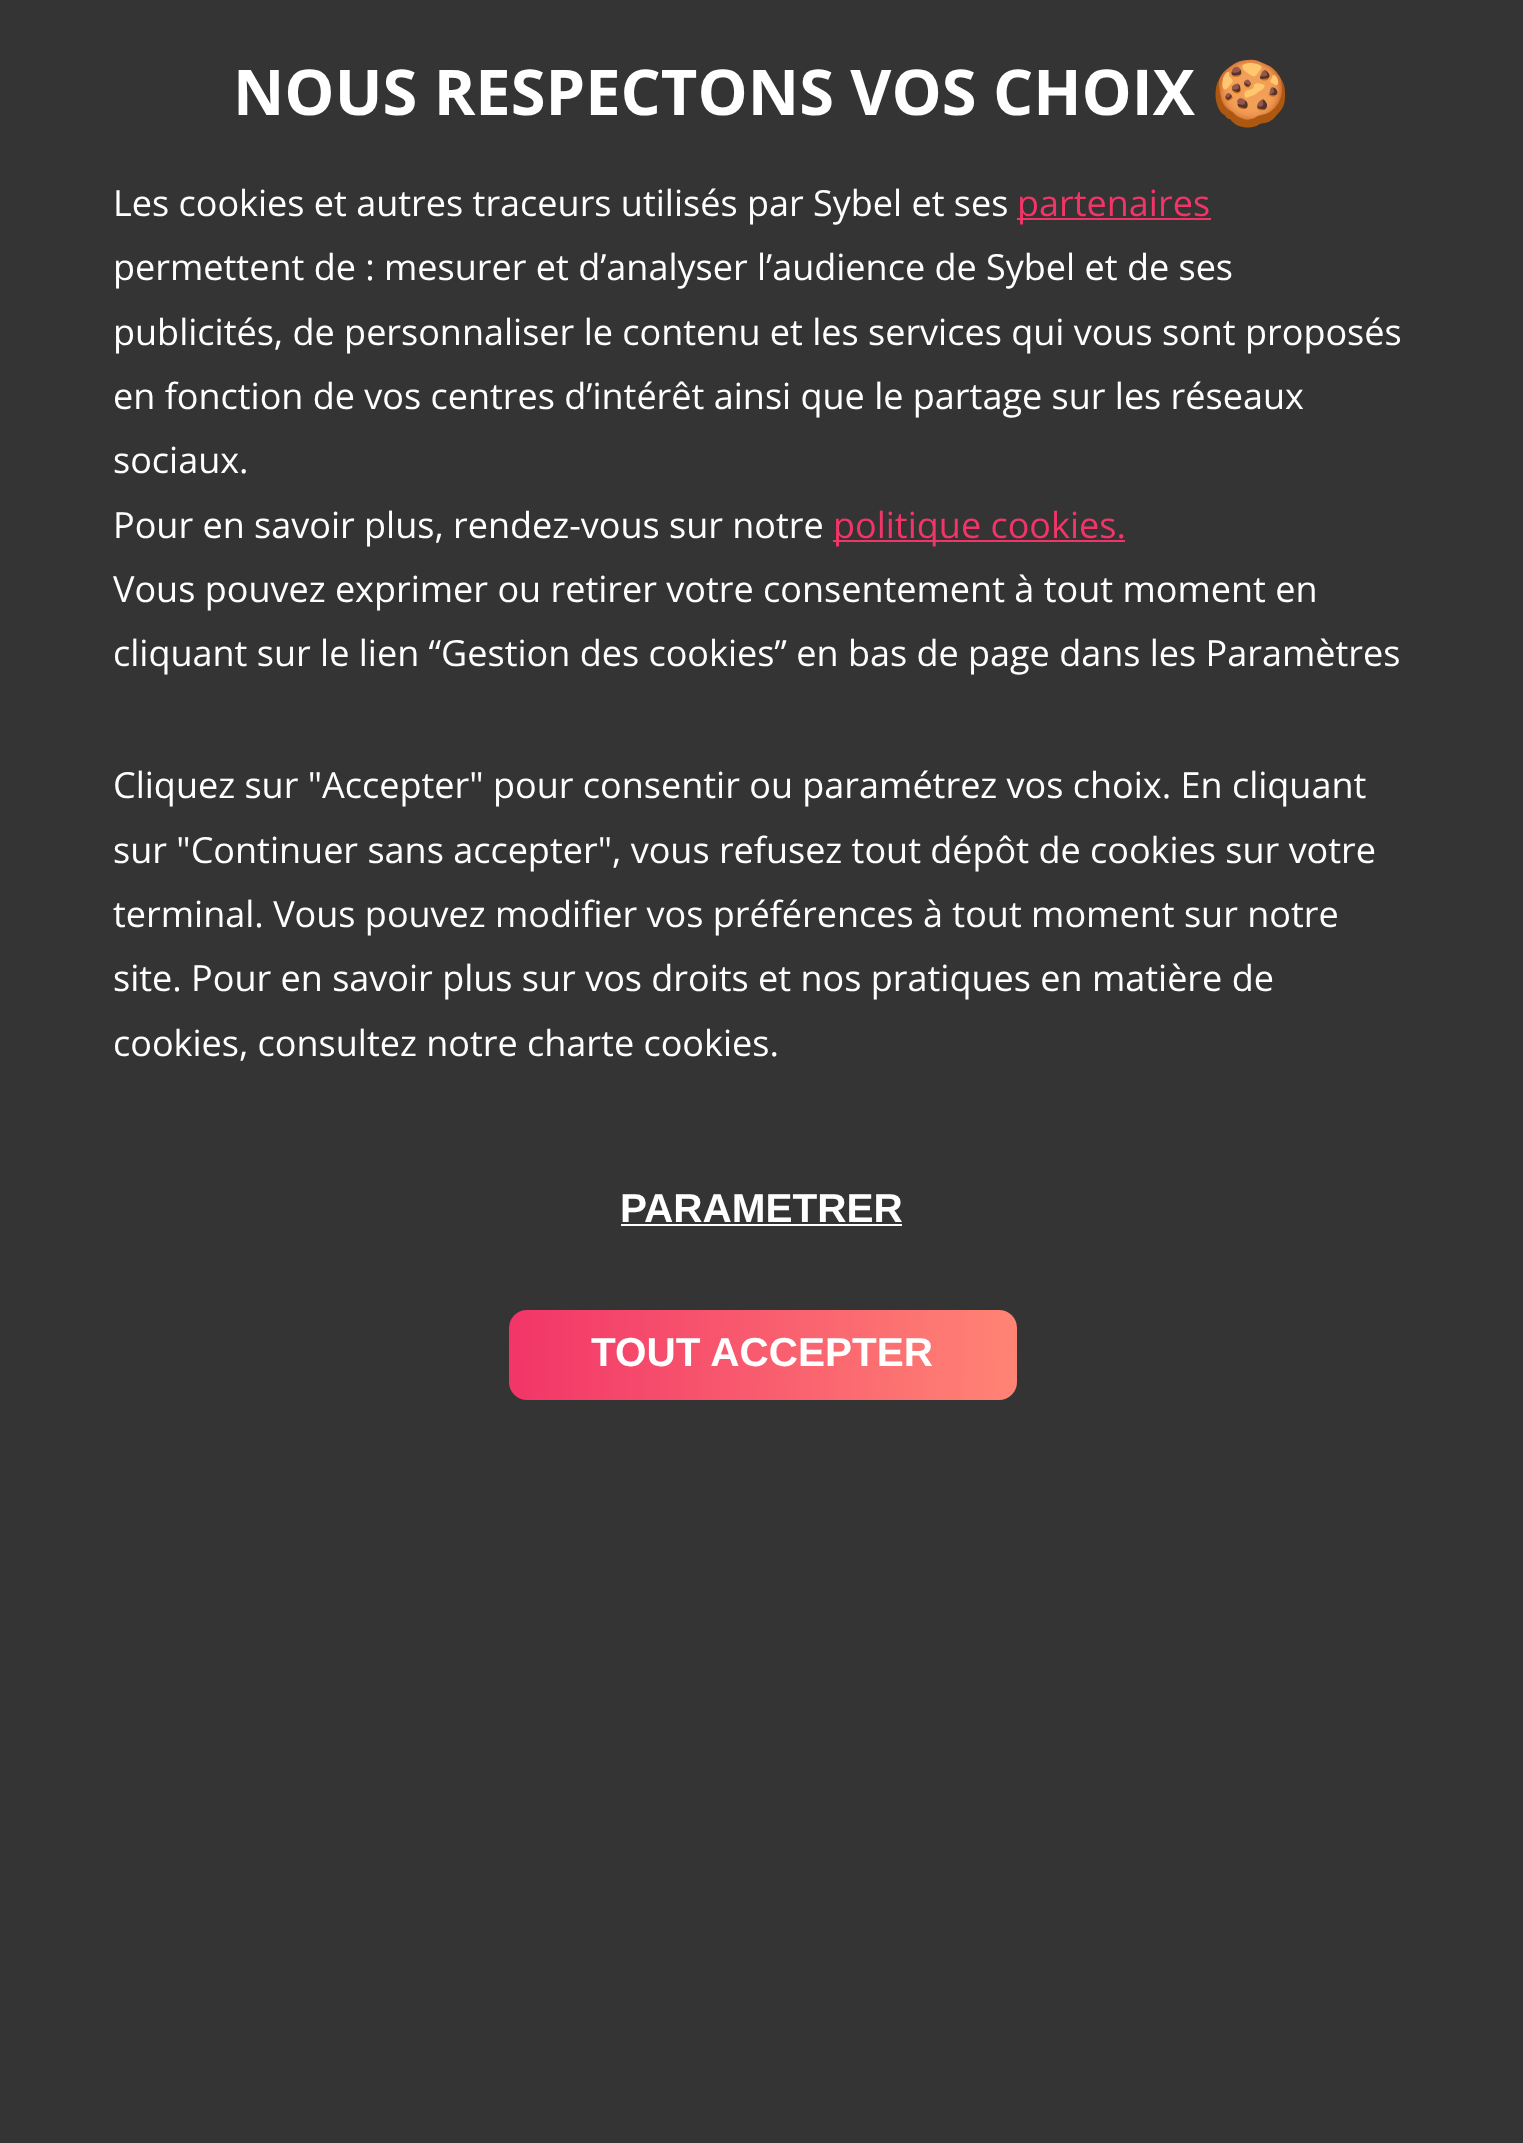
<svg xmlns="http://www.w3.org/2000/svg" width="1523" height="2143">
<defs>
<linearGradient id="g1" gradientUnits="userSpaceOnUse" x1="508" y1="1350" x2="1018" y2="1359"><stop offset="0" stop-color="#f23568"/><stop offset="1" stop-color="#ff8475"/></linearGradient>
</defs>
<rect width="100%" height="100%" fill="#343434"/>
<text x="233" y="115" style="font-family:Open Sans;font-size:63.2px;font-weight:bold;fill:#fff">NOUS RESPECTONS VOS CHOIX</text>
<text x="1211" y="115" style="font-family:Noto Color Emoji;font-size:63.2px;font-weight:bold;fill:#fff">🍪</text>
<text x="113" y="216" style="font-family:Open Sans;font-size:36px;fill:#fff">Les cookies et autres traceurs utilisés par Sybel et ses</text>
<rect x="1017" y="218" width="194" height="2" fill="#f23568"/>
<text x="1017" y="216" style="font-family:Open Sans;font-size:36px;fill:#f23568">partenaires</text>
<text x="113" y="280" style="font-family:Open Sans;font-size:36px;fill:#fff">permettent de : mesurer et d’analyser l’audience de Sybel et de ses</text>
<text x="113" y="345" style="font-family:Open Sans;font-size:36px;fill:#fff">publicités, de personnaliser le contenu et les services qui vous sont proposés</text>
<text x="113" y="409" style="font-family:Open Sans;font-size:36px;fill:#fff">en fonction de vos centres d’intérêt ainsi que le partage sur les réseaux</text>
<text x="113" y="473" style="font-family:Open Sans;font-size:36px;fill:#fff">sociaux.</text>
<text x="113" y="538" style="font-family:Open Sans;font-size:36px;fill:#fff">Pour en savoir plus, rendez-vous sur notre</text>
<rect x="833" y="540" width="292" height="2" fill="#f23568"/>
<text x="833" y="538" style="font-family:Open Sans;font-size:36px;fill:#f23568">politique cookies.</text>
<text x="113" y="602" style="font-family:Open Sans;font-size:36px;fill:#fff">Vous pouvez exprimer ou retirer votre consentement à tout moment en</text>
<text x="113" y="666" style="font-family:Open Sans;font-size:36px;fill:#fff">cliquant sur le lien “Gestion des cookies” en bas de page dans les Paramètres</text>
<text x="113" y="798" style="font-family:Open Sans;font-size:36px;fill:#fff">Cliquez sur "Accepter" pour consentir ou paramétrez vos choix. En cliquant</text>
<text x="113" y="863" style="font-family:Open Sans;font-size:36px;fill:#fff">sur "Continuer sans accepter", vous refusez tout dépôt de cookies sur votre</text>
<text x="113" y="927" style="font-family:Open Sans;font-size:36px;fill:#fff">terminal. Vous pouvez modifier vos préférences à tout moment sur notre</text>
<text x="113" y="991" style="font-family:Open Sans;font-size:36px;fill:#fff">site. Pour en savoir plus sur vos droits et nos pratiques en matière de</text>
<text x="113" y="1056" style="font-family:Open Sans;font-size:36px;fill:#fff">cookies, consultez notre charte cookies.</text>
<text x="620" y="1222" style="font-family:Liberation Sans;font-size:40.5px;font-weight:bold;fill:#fff">PARAMETRER</text>
<rect x="621" y="1224" width="281" height="2" fill="#fff"/>
<rect x="509" y="1310" width="508" height="90" rx="18" fill="url(#g1)"/>
<text x="591" y="1366" style="font-family:Liberation Sans;font-size:40.5px;font-weight:bold;fill:#fff">TOUT ACCEPTER</text>
</svg>
